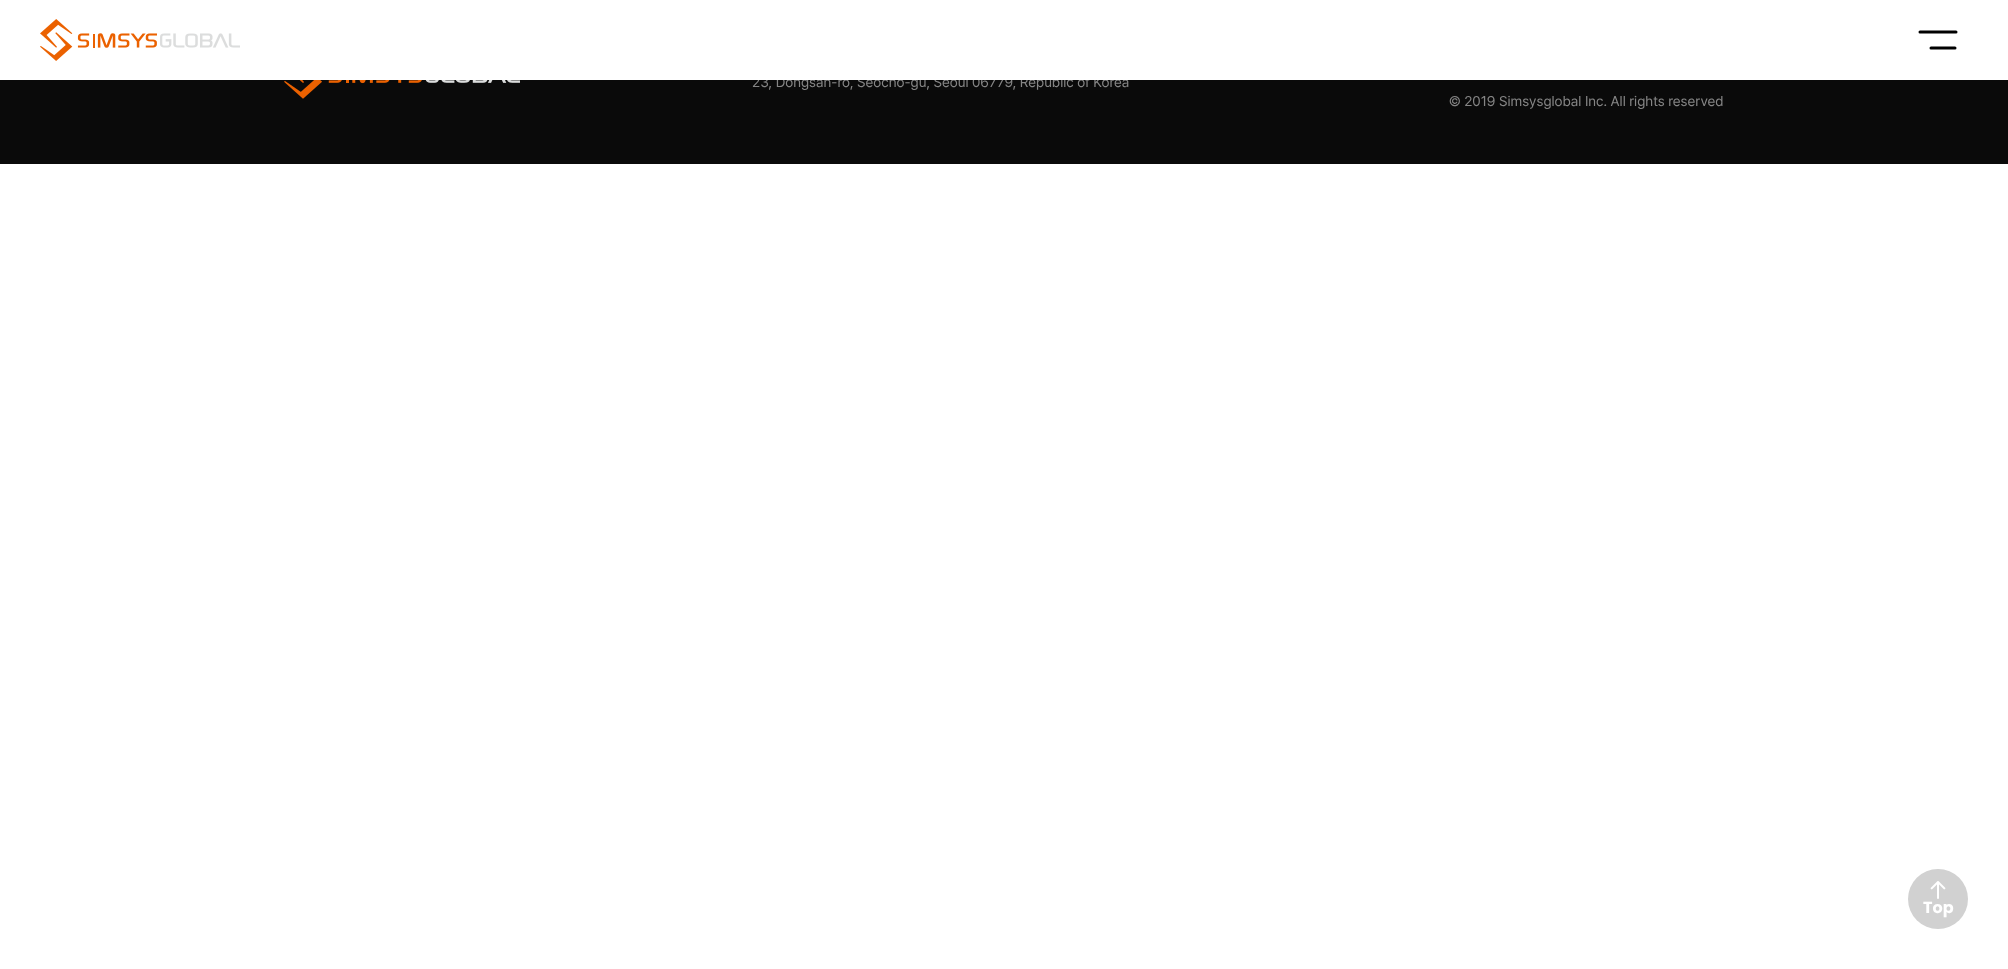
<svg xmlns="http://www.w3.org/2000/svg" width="2008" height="969">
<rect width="100%" height="100%" fill="#fff"/>
<rect y="80" width="2008" height="84" fill="#0a0a0a"/>
<text x="752" y="87" style="font-family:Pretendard;font-size:14px;fill:#858585">23, Dongsan-ro, Seocho-gu, Seoul 06779, Republic of Korea</text>
<rect x="753" y="76" width="375" height="4" fill="#fff"/>
<image x="40" y="19" width="200" height="42" href="media/1.png"/>
<path d="M1955 48h-24m25-16h-36" fill="none" stroke="#000" stroke-width="3" stroke-linecap="round"/>
<image x="284" y="80" width="236" height="19" href="media/2.png"/>
<text x="1449" y="106" style="font-family:Pretendard;font-size:14px;fill:#858585">© 2019 Simsysglobal Inc. All rights reserved</text>
<circle cx="1938" cy="899" r="30" fill="#d1d1d1"/>
<image x="1930" y="881" width="16" height="18" href="media/3.png"/>
<text x="1923" y="913" style="font-family:Poppins;font-size:16px;font-weight:bold;fill:#fff">Top</text>
</svg>
